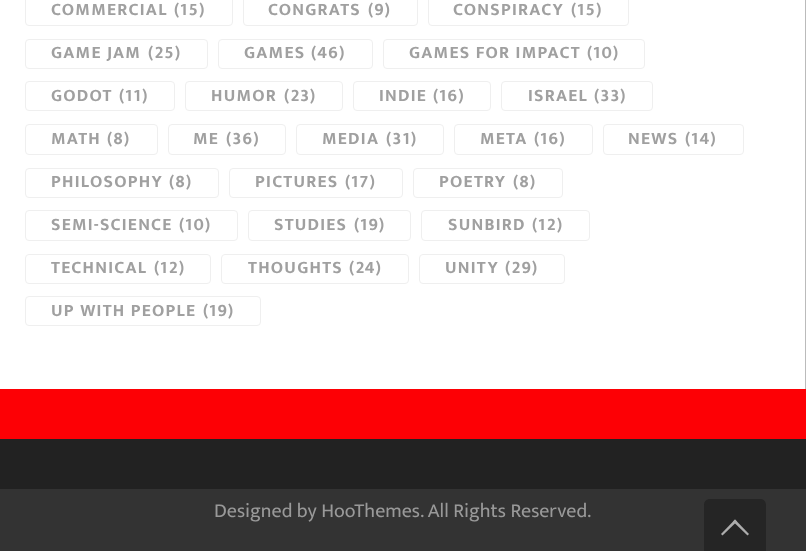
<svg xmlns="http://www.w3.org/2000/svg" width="806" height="551">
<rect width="100%" height="100%" fill="#fff"/>
<rect x="805" width="1" height="389" fill="#bbb"/>
<rect x="25.5" y="-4.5" width="207" height="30" rx="3.5" fill="none" stroke="#efefef"/>
<text x="51" y="15" style="font-family:Mukta;font-size:17.5px;font-weight:bold;letter-spacing:1.25px;fill:#a0a0a0">COMMERCIAL</text>
<text x="174" y="15" style="font-family:Mukta;font-size:17.5px;font-weight:bold;letter-spacing:1.25px;fill:#a0a0a0">(15)</text>
<rect x="243.5" y="-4.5" width="174" height="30" rx="3.5" fill="none" stroke="#efefef"/>
<text x="268" y="15" style="font-family:Mukta;font-size:17.5px;font-weight:bold;letter-spacing:1.25px;fill:#a0a0a0">CONGRATS</text>
<text x="368" y="15" style="font-family:Mukta;font-size:17.5px;font-weight:bold;letter-spacing:1.25px;fill:#a0a0a0">(9)</text>
<rect x="428.5" y="-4.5" width="200" height="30" rx="3.5" fill="none" stroke="#efefef"/>
<text x="453" y="15" style="font-family:Mukta;font-size:17.5px;font-weight:bold;letter-spacing:1.25px;fill:#a0a0a0">CONSPIRACY</text>
<text x="571" y="15" style="font-family:Mukta;font-size:17.5px;font-weight:bold;letter-spacing:1.25px;fill:#a0a0a0">(15)</text>
<rect x="25.5" y="39.5" width="182" height="29" rx="3.5" fill="none" stroke="#efefef"/>
<text x="51" y="58" style="font-family:Mukta;font-size:17.5px;font-weight:bold;letter-spacing:1.25px;fill:#a0a0a0">GAME JAM</text>
<text x="148" y="58" style="font-family:Mukta;font-size:17.5px;font-weight:bold;letter-spacing:1.25px;fill:#a0a0a0">(25)</text>
<rect x="218.5" y="39.5" width="154" height="29" rx="3.5" fill="none" stroke="#efefef"/>
<text x="244" y="58" style="font-family:Mukta;font-size:17.5px;font-weight:bold;letter-spacing:1.25px;fill:#a0a0a0">GAMES</text>
<text x="311" y="58" style="font-family:Mukta;font-size:17.5px;font-weight:bold;letter-spacing:1.25px;fill:#a0a0a0">(46)</text>
<rect x="383.5" y="39.5" width="261" height="29" rx="3.5" fill="none" stroke="#efefef"/>
<text x="409" y="58" style="font-family:Mukta;font-size:17.5px;font-weight:bold;letter-spacing:1.25px;fill:#a0a0a0">GAMES FOR IMPACT</text>
<text x="587" y="58" style="font-family:Mukta;font-size:17.5px;font-weight:bold;letter-spacing:1.25px;fill:#a0a0a0">(10)</text>
<rect x="25.5" y="81.5" width="149" height="29" rx="3.5" fill="none" stroke="#efefef"/>
<text x="51" y="101" style="font-family:Mukta;font-size:17.5px;font-weight:bold;letter-spacing:1.25px;fill:#a0a0a0">GODOT</text>
<text x="119" y="101" style="font-family:Mukta;font-size:17.5px;font-weight:bold;letter-spacing:1.25px;fill:#a0a0a0">(11)</text>
<rect x="185.5" y="81.5" width="157" height="29" rx="3.5" fill="none" stroke="#efefef"/>
<text x="211" y="101" style="font-family:Mukta;font-size:17.5px;font-weight:bold;letter-spacing:1.25px;fill:#a0a0a0">HUMOR</text>
<text x="284" y="101" style="font-family:Mukta;font-size:17.5px;font-weight:bold;letter-spacing:1.25px;fill:#a0a0a0">(23)</text>
<rect x="353.5" y="81.5" width="137" height="29" rx="3.5" fill="none" stroke="#efefef"/>
<text x="379" y="101" style="font-family:Mukta;font-size:17.5px;font-weight:bold;letter-spacing:1.25px;fill:#a0a0a0">INDIE</text>
<text x="433" y="101" style="font-family:Mukta;font-size:17.5px;font-weight:bold;letter-spacing:1.25px;fill:#a0a0a0">(16)</text>
<rect x="501.5" y="81.5" width="151" height="29" rx="3.5" fill="none" stroke="#efefef"/>
<text x="528" y="101" style="font-family:Mukta;font-size:17.5px;font-weight:bold;letter-spacing:1.25px;fill:#a0a0a0">ISRAEL</text>
<text x="594" y="101" style="font-family:Mukta;font-size:17.5px;font-weight:bold;letter-spacing:1.25px;fill:#a0a0a0">(33)</text>
<rect x="25.5" y="124.5" width="132" height="30" rx="3.5" fill="none" stroke="#efefef"/>
<text x="51" y="144" style="font-family:Mukta;font-size:17.5px;font-weight:bold;letter-spacing:1.25px;fill:#a0a0a0">MATH</text>
<text x="107" y="144" style="font-family:Mukta;font-size:17.5px;font-weight:bold;letter-spacing:1.25px;fill:#a0a0a0">(8)</text>
<rect x="168.5" y="124.5" width="117" height="30" rx="3.5" fill="none" stroke="#efefef"/>
<text x="193" y="144" style="font-family:Mukta;font-size:17.5px;font-weight:bold;letter-spacing:1.25px;fill:#a0a0a0">ME</text>
<text x="226" y="144" style="font-family:Mukta;font-size:17.5px;font-weight:bold;letter-spacing:1.25px;fill:#a0a0a0">(36)</text>
<rect x="296.5" y="124.5" width="147" height="30" rx="3.5" fill="none" stroke="#efefef"/>
<text x="322" y="144" style="font-family:Mukta;font-size:17.5px;font-weight:bold;letter-spacing:1.25px;fill:#a0a0a0">MEDIA</text>
<text x="386" y="144" style="font-family:Mukta;font-size:17.5px;font-weight:bold;letter-spacing:1.25px;fill:#a0a0a0">(31)</text>
<rect x="454.5" y="124.5" width="138" height="30" rx="3.5" fill="none" stroke="#efefef"/>
<text x="480" y="144" style="font-family:Mukta;font-size:17.5px;font-weight:bold;letter-spacing:1.25px;fill:#a0a0a0">META</text>
<text x="534" y="144" style="font-family:Mukta;font-size:17.5px;font-weight:bold;letter-spacing:1.25px;fill:#a0a0a0">(16)</text>
<rect x="603.5" y="124.5" width="140" height="30" rx="3.5" fill="none" stroke="#efefef"/>
<text x="628" y="144" style="font-family:Mukta;font-size:17.5px;font-weight:bold;letter-spacing:1.25px;fill:#a0a0a0">NEWS</text>
<text x="685" y="144" style="font-family:Mukta;font-size:17.5px;font-weight:bold;letter-spacing:1.25px;fill:#a0a0a0">(14)</text>
<rect x="25.5" y="168.5" width="193" height="29" rx="3.5" fill="none" stroke="#efefef"/>
<text x="51" y="187" style="font-family:Mukta;font-size:17.5px;font-weight:bold;letter-spacing:1.25px;fill:#a0a0a0">PHILOSOPHY</text>
<text x="169" y="187" style="font-family:Mukta;font-size:17.5px;font-weight:bold;letter-spacing:1.25px;fill:#a0a0a0">(8)</text>
<rect x="229.5" y="168.5" width="173" height="29" rx="3.5" fill="none" stroke="#efefef"/>
<text x="255" y="187" style="font-family:Mukta;font-size:17.5px;font-weight:bold;letter-spacing:1.25px;fill:#a0a0a0">PICTURES</text>
<text x="345" y="187" style="font-family:Mukta;font-size:17.5px;font-weight:bold;letter-spacing:1.25px;fill:#a0a0a0">(17)</text>
<rect x="413.5" y="168.5" width="149" height="29" rx="3.5" fill="none" stroke="#efefef"/>
<text x="439" y="187" style="font-family:Mukta;font-size:17.5px;font-weight:bold;letter-spacing:1.25px;fill:#a0a0a0">POETRY</text>
<text x="513" y="187" style="font-family:Mukta;font-size:17.5px;font-weight:bold;letter-spacing:1.25px;fill:#a0a0a0">(8)</text>
<rect x="25.5" y="210.5" width="212" height="30" rx="3.5" fill="none" stroke="#efefef"/>
<text x="51" y="230" style="font-family:Mukta;font-size:17.5px;font-weight:bold;letter-spacing:1.25px;fill:#a0a0a0">SEMI-SCIENCE</text>
<text x="179" y="230" style="font-family:Mukta;font-size:17.5px;font-weight:bold;letter-spacing:1.25px;fill:#a0a0a0">(10)</text>
<rect x="248.5" y="210.5" width="162" height="30" rx="3.5" fill="none" stroke="#efefef"/>
<text x="274" y="230" style="font-family:Mukta;font-size:17.5px;font-weight:bold;letter-spacing:1.25px;fill:#a0a0a0">STUDIES</text>
<text x="354" y="230" style="font-family:Mukta;font-size:17.5px;font-weight:bold;letter-spacing:1.25px;fill:#a0a0a0">(19)</text>
<rect x="421.5" y="210.5" width="168" height="30" rx="3.5" fill="none" stroke="#efefef"/>
<text x="448" y="230" style="font-family:Mukta;font-size:17.5px;font-weight:bold;letter-spacing:1.25px;fill:#a0a0a0">SUNBIRD</text>
<text x="532" y="230" style="font-family:Mukta;font-size:17.5px;font-weight:bold;letter-spacing:1.25px;fill:#a0a0a0">(12)</text>
<rect x="25.5" y="254.5" width="185" height="29" rx="3.5" fill="none" stroke="#efefef"/>
<text x="51" y="273" style="font-family:Mukta;font-size:17.5px;font-weight:bold;letter-spacing:1.25px;fill:#a0a0a0">TECHNICAL</text>
<text x="154" y="273" style="font-family:Mukta;font-size:17.5px;font-weight:bold;letter-spacing:1.25px;fill:#a0a0a0">(12)</text>
<rect x="221.5" y="254.5" width="187" height="29" rx="3.5" fill="none" stroke="#efefef"/>
<text x="248" y="273" style="font-family:Mukta;font-size:17.5px;font-weight:bold;letter-spacing:1.25px;fill:#a0a0a0">THOUGHTS</text>
<text x="349" y="273" style="font-family:Mukta;font-size:17.5px;font-weight:bold;letter-spacing:1.25px;fill:#a0a0a0">(24)</text>
<rect x="419.5" y="254.5" width="145" height="29" rx="3.5" fill="none" stroke="#efefef"/>
<text x="445" y="273" style="font-family:Mukta;font-size:17.5px;font-weight:bold;letter-spacing:1.25px;fill:#a0a0a0">UNITY</text>
<text x="505" y="273" style="font-family:Mukta;font-size:17.5px;font-weight:bold;letter-spacing:1.25px;fill:#a0a0a0">(29)</text>
<rect x="25.5" y="296.5" width="235" height="29" rx="3.5" fill="none" stroke="#efefef"/>
<text x="51" y="316" style="font-family:Mukta;font-size:17.5px;font-weight:bold;letter-spacing:1.25px;fill:#a0a0a0">UP WITH PEOPLE</text>
<text x="203" y="316" style="font-family:Mukta;font-size:17.5px;font-weight:bold;letter-spacing:1.25px;fill:#a0a0a0">(19)</text>
<rect y="439" width="806" height="50" fill="#222"/>
<rect y="389" width="806" height="50" fill="#fd0005"/>
<rect y="489" width="806" height="62" fill="#333"/>
<text x="214" y="517" style="font-family:Mukta;font-size:20px;fill:#999">Designed by HooThemes. All Rights Reserved.</text>
<path d="M710 499h50c3.5 0 6 2.5 6 6v46h-62v-46c0-3.5 2.5-6 6-6z" fill="#252525"/>
<path d="M721 534l14-14.5l2 2l-14.5 14z" fill="#adadad"/>
<path d="M733 521.5l2-2l14 14.5l-1.5 1.5z" fill="#adadad"/>
</svg>
